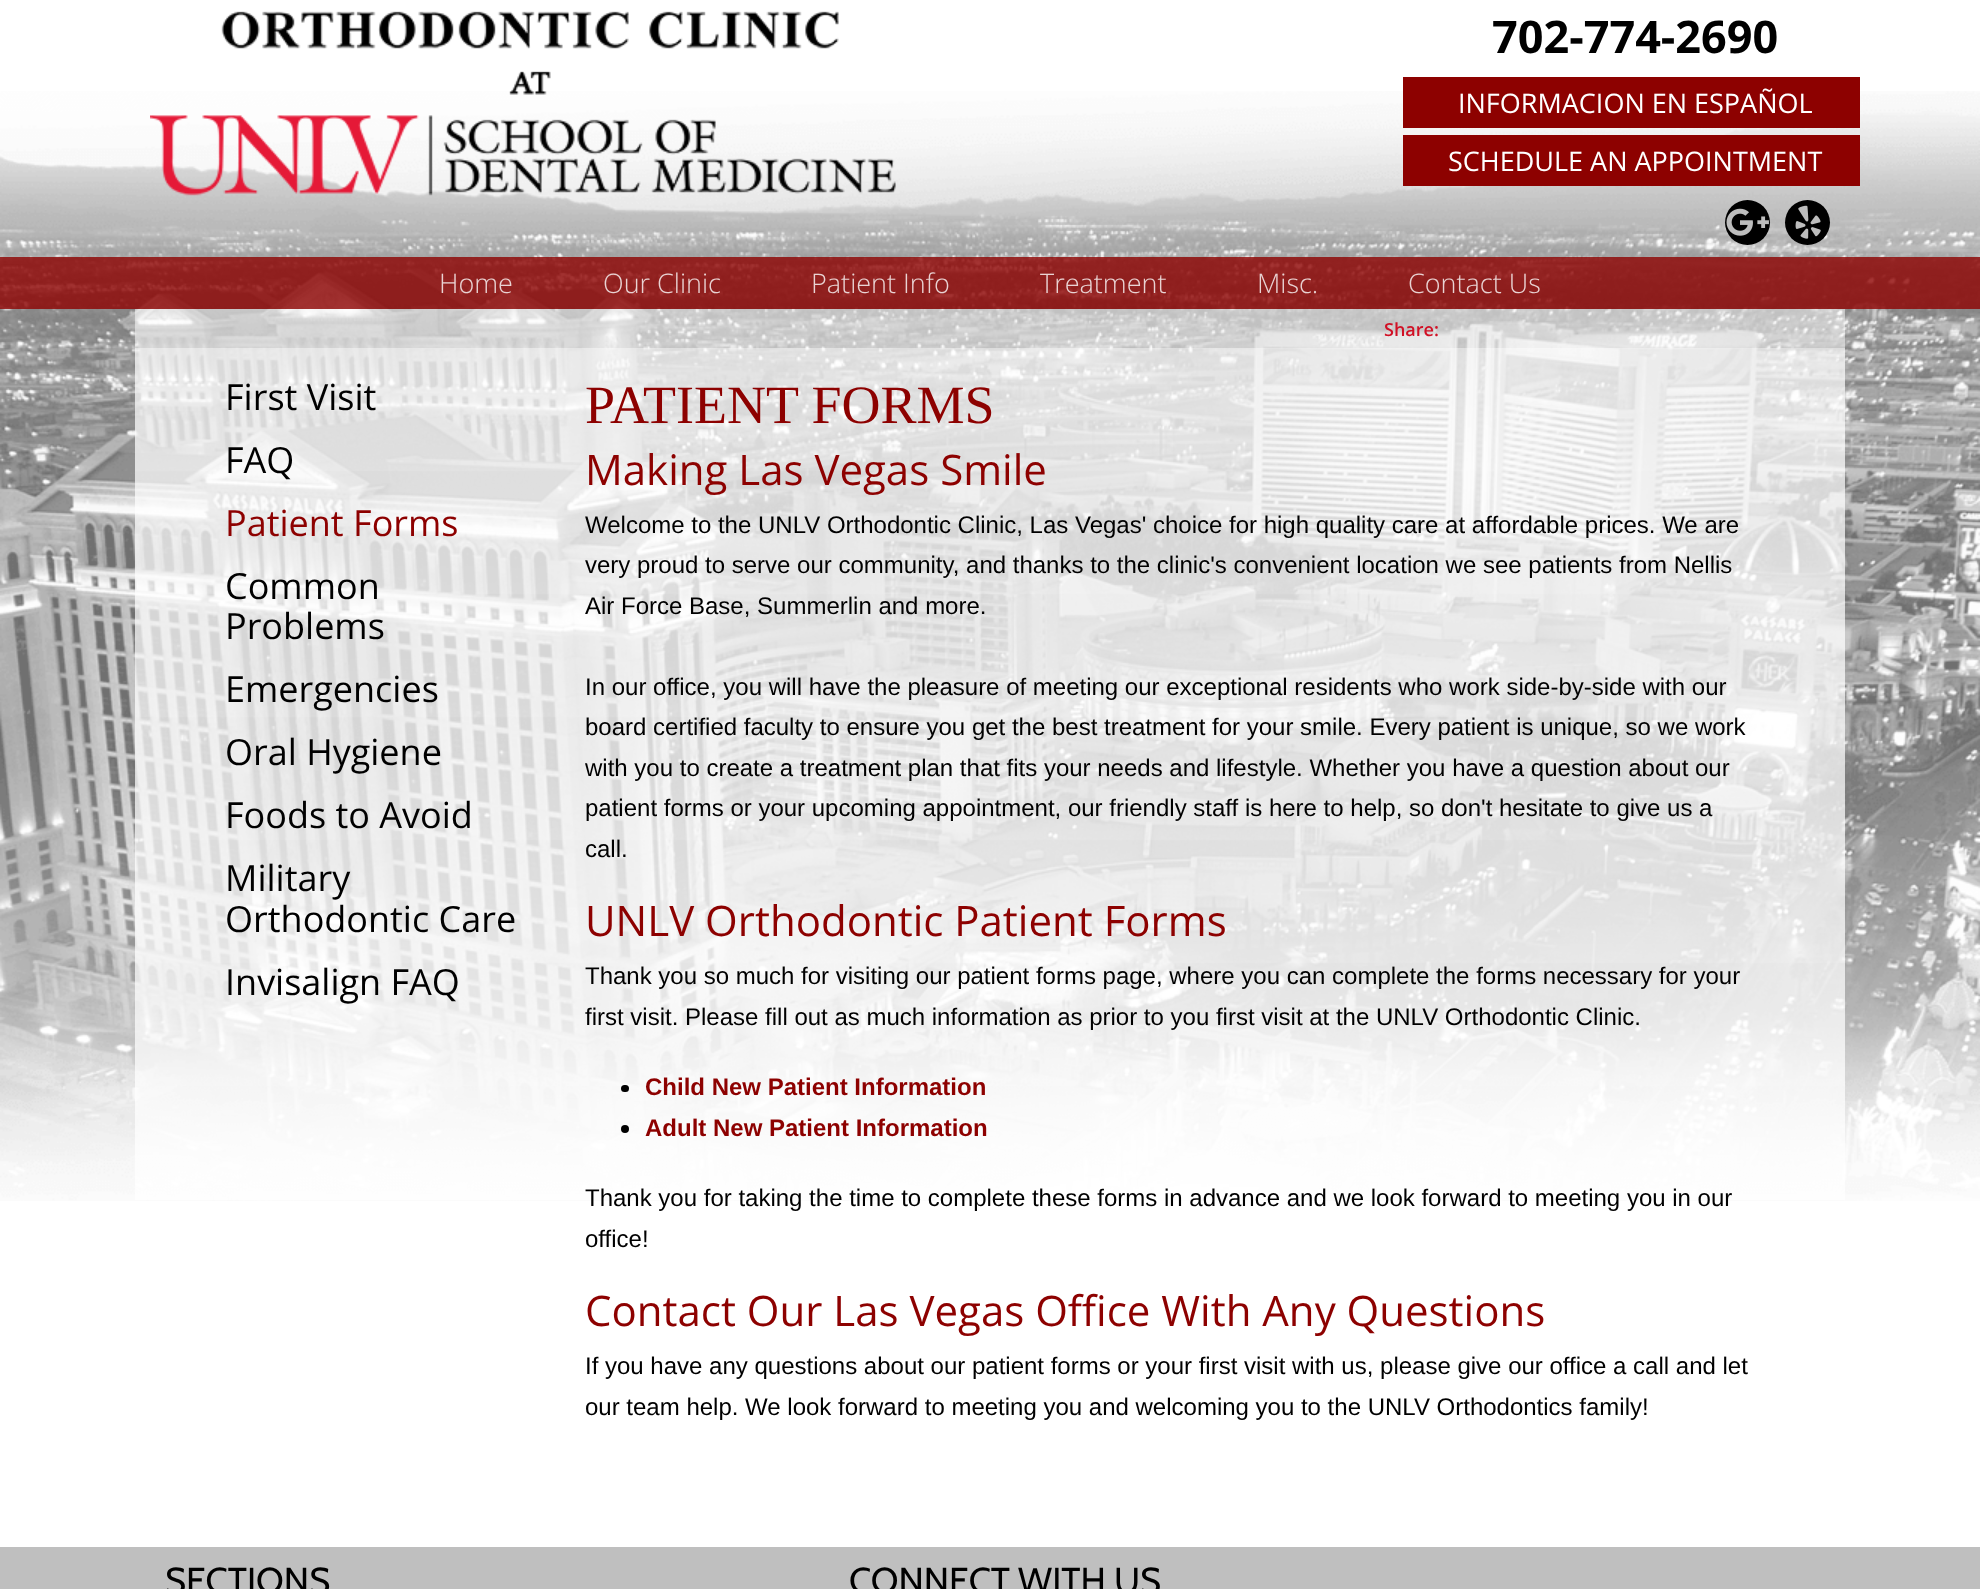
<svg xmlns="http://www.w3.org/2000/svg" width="1980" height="1589">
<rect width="100%" height="100%" fill="#fff"/>
<image x="0" y="91" width="1980" height="1110" href="media/1.png"/>
<image x="150" y="11" width="746" height="185" href="media/2.png"/>
<text x="1492" y="53" style="font-family:Open Sans;font-size:45px;font-weight:bold;fill:#000">702-774-2690</text>
<rect x="1403" y="77" width="457" height="51" fill="#8d0100"/>
<text x="1458" y="113" style="font-family:Open Sans;font-size:27px;fill:#fff">INFORMACION EN ESPAÑOL</text>
<rect x="1403" y="135" width="457" height="51" fill="#8d0100"/>
<text x="1448" y="171" style="font-family:Open Sans;font-size:27px;fill:#fff">SCHEDULE AN APPOINTMENT</text>
<circle cx="1747.5" cy="222.5" r="22.5" fill="#000"/>
<image x="1726" y="208" width="43" height="28" href="media/3.png"/>
<circle cx="1807.5" cy="222.5" r="22.5" fill="#000"/>
<image x="1795" y="205" width="26" height="34" href="media/4.png"/>
<rect y="257" width="1980" height="52" fill="#8d0100cc"/>
<text x="439" y="293" style="font-family:Open Sans;font-size:27px;font-weight:300;fill:#e9d3d3">Home</text>
<text x="603" y="293" style="font-family:Open Sans;font-size:27px;font-weight:300;fill:#e9d3d3">Our Clinic</text>
<text x="811" y="293" style="font-family:Open Sans;font-size:27px;font-weight:300;fill:#e9d3d3">Patient Info</text>
<text x="1040" y="293" style="font-family:Open Sans;font-size:27px;font-weight:300;fill:#e9d3d3">Treatment</text>
<text x="1257" y="293" style="font-family:Open Sans;font-size:27px;font-weight:300;fill:#e9d3d3">Misc.</text>
<text x="1408" y="293" style="font-family:Open Sans;font-size:27px;font-weight:300;fill:#e9d3d3">Contact Us</text>
<rect x="135" y="309" width="1710" height="39" fill="#ffffff80"/>
<text x="1384" y="336" style="font-family:Open Sans;font-size:18px;font-weight:600;fill:#d11025">Share:</text>
<image x="135" y="348" width="1710" height="852" href="media/5.png"/>
<text x="225" y="410" style="font-family:Open Sans;font-size:36px;fill:#000">First Visit</text>
<text x="225" y="473" style="font-family:Open Sans;font-size:36px;fill:#000">FAQ</text>
<text x="225" y="536" style="font-family:Open Sans;font-size:36px;fill:#8d0100">Patient Forms</text>
<text x="225" y="599" style="font-family:Open Sans;font-size:36px;fill:#000">Common</text>
<text x="225" y="639" style="font-family:Open Sans;font-size:36px;fill:#000">Problems</text>
<text x="225" y="702" style="font-family:Open Sans;font-size:36px;fill:#000">Emergencies</text>
<text x="225" y="765" style="font-family:Open Sans;font-size:36px;fill:#000">Oral Hygiene</text>
<text x="225" y="828" style="font-family:Open Sans;font-size:36px;fill:#000">Foods to Avoid</text>
<text x="225" y="891" style="font-family:Open Sans;font-size:36px;fill:#000">Military</text>
<text x="225" y="932" style="font-family:Open Sans;font-size:36px;fill:#000">Orthodontic Care</text>
<text x="225" y="995" style="font-family:Open Sans;font-size:36px;fill:#000">Invisalign FAQ</text>
<text x="585" y="423" style="font-family:Liberation Serif;font-size:54px;fill:#8d0100">PATIENT FORMS</text>
<text x="585" y="485" style="font-family:Open Sans;font-size:42px;fill:#8d0100">Making Las Vegas Smile</text>
<text x="585" y="533" style="font-family:Liberation Sans;font-size:24px;fill:#000">Welcome to the UNLV Orthodontic Clinic, Las Vegas' choice for high quality care at affordable prices. We are</text>
<text x="585" y="573" style="font-family:Liberation Sans;font-size:24px;fill:#000">very proud to serve our community, and thanks to the clinic's convenient location we see patients from Nellis</text>
<text x="585" y="614" style="font-family:Liberation Sans;font-size:24px;fill:#000">Air Force Base, Summerlin and more.</text>
<text x="585" y="695" style="font-family:Liberation Sans;font-size:24px;fill:#000">In our office, you will have the pleasure of meeting our exceptional residents who work side-by-side with our</text>
<text x="585" y="735" style="font-family:Liberation Sans;font-size:24px;fill:#000">board certified faculty to ensure you get the best treatment for your smile. Every patient is unique, so we work</text>
<text x="585" y="776" style="font-family:Liberation Sans;font-size:24px;fill:#000">with you to create a treatment plan that fits your needs and lifestyle. Whether you have a question about our</text>
<text x="585" y="816" style="font-family:Liberation Sans;font-size:24px;fill:#000">patient forms or your upcoming appointment, our friendly staff is here to help, so don't hesitate to give us a</text>
<text x="585" y="857" style="font-family:Liberation Sans;font-size:24px;fill:#000">call.</text>
<text x="585" y="936" style="font-family:Open Sans;font-size:42px;fill:#8d0100">UNLV Orthodontic Patient Forms</text>
<text x="585" y="984" style="font-family:Liberation Sans;font-size:24px;fill:#000">Thank you so much for visiting our patient forms page, where you can complete the forms necessary for your</text>
<text x="585" y="1025" style="font-family:Liberation Sans;font-size:24px;fill:#000">first visit. Please fill out as much information as prior to you first visit at the UNLV Orthodontic Clinic.</text>
<rect x="621" y="1085" width="8" height="7" rx="3.5" fill="#000"/>
<text x="645" y="1095" style="font-family:Liberation Sans;font-size:24px;font-weight:bold;fill:#8d0100">Child New Patient Information</text>
<circle cx="625" cy="1129" r="4" fill="#000"/>
<text x="645" y="1136" style="font-family:Liberation Sans;font-size:24px;font-weight:bold;fill:#8d0100">Adult New Patient Information</text>
<text x="585" y="1206" style="font-family:Liberation Sans;font-size:24px;fill:#000">Thank you for taking the time to complete these forms in advance and we look forward to meeting you in our</text>
<text x="585" y="1247" style="font-family:Liberation Sans;font-size:24px;fill:#000">office!</text>
<text x="585" y="1326" style="font-family:Open Sans;font-size:42px;fill:#8d0100">Contact Our Las Vegas Office With Any Questions</text>
<text x="585" y="1374" style="font-family:Liberation Sans;font-size:24px;fill:#000">If you have any questions about our patient forms or your first visit with us, please give our office a call and let</text>
<text x="585" y="1415" style="font-family:Liberation Sans;font-size:24px;fill:#000">our team help. We look forward to meeting you and welcoming you to the UNLV Orthodontics family!</text>
<rect y="1547" width="1980" height="42" fill="#bfbfbf"/>
<text x="165" y="1593" style="font-family:Cabin;font-size:36px;fill:#000">SECTIONS</text>
<text x="849" y="1593" style="font-family:Cabin;font-size:36px;fill:#000">CONNECT WITH US</text>
</svg>
